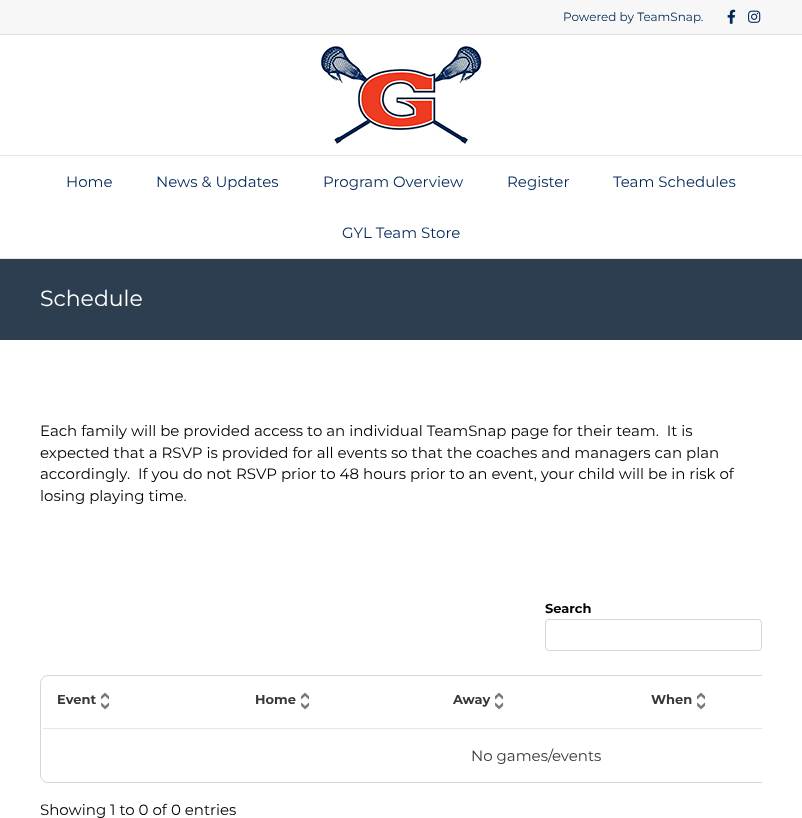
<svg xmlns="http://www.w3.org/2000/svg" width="802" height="818">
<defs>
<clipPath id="clip1"><rect x="40" y="667" width="722" height="132"/></clipPath>
</defs>
<rect width="100%" height="100%" fill="#fff"/>
<rect width="802" height="34" fill="#f7f7f7"/>
<rect y="34" width="802" height="1" fill="#dedede"/>
<text x="563" y="21" style="font-family:Montserrat;font-size:12px;fill:#002856">Powered by TeamSnap.</text>
<image x="727" y="9" width="9" height="15" href="media/1.png"/>
<image x="748" y="10" width="13" height="13" href="media/2.png"/>
<image x="320" y="45" width="162" height="99" href="media/3.png"/>
<rect y="155" width="802" height="1" fill="#e6e6e6"/>
<rect y="258" width="802" height="1" fill="#e6e6e6"/>
<text x="66" y="187" style="font-family:Montserrat;font-size:15px;fill:#002856">Home</text>
<text x="156" y="187" style="font-family:Montserrat;font-size:15px;fill:#002856">News &amp; Updates</text>
<text x="323" y="187" style="font-family:Montserrat;font-size:15px;fill:#002856">Program Overview</text>
<text x="507" y="187" style="font-family:Montserrat;font-size:15px;fill:#002856">Register</text>
<text x="613" y="187" style="font-family:Montserrat;font-size:15px;fill:#002856">Team Schedules</text>
<text x="342" y="238" style="font-family:Montserrat;font-size:15px;fill:#002856">GYL Team Store</text>
<rect y="259" width="802" height="81" fill="#2c3e50"/>
<text x="40" y="306" style="font-family:Montserrat;font-size:22px;fill:#fff">Schedule</text>
<text x="40" y="436" style="font-family:Montserrat;font-size:15px;fill:#000" xml:space="preserve">Each family will be provided access to an individual TeamSnap page for their team.  It is</text>
<text x="40" y="458" style="font-family:Montserrat;font-size:15px;fill:#000">expected that a RSVP is provided for all events so that the coaches and managers can plan</text>
<text x="40" y="479" style="font-family:Montserrat;font-size:15px;fill:#000" xml:space="preserve">accordingly.  If you do not RSVP prior to 48 hours prior to an event, your child will be in risk of</text>
<text x="40" y="501" style="font-family:Montserrat;font-size:15px;fill:#000">losing playing time.</text>
<text x="545" y="613" style="font-family:Montserrat;font-size:13px;font-weight:bold;fill:#000">Search</text>
<rect x="545.5" y="619.5" width="216" height="31" rx="3.5" fill="none" stroke="#d6d6d6"/>
<g clip-path="url(#clip1)">
<rect x="40.5" y="675.5" width="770" height="107" rx="7.5" fill="none" stroke="#d6d6d6"/>
</g>
<rect x="43" y="728" width="719" height="1" fill="#e6e6e6"/>
<text x="57" y="704" style="font-family:Montserrat;font-size:13px;font-weight:bold;fill:#383838">Event</text>
<image x="101" y="692" width="8" height="8" href="media/4.png"/>
<image x="101" y="702" width="9" height="8" href="media/5.png"/>
<text x="255" y="704" style="font-family:Montserrat;font-size:13px;font-weight:bold;fill:#383838">Home</text>
<image x="301" y="692" width="8" height="8" href="media/4.png"/>
<image x="301" y="702" width="9" height="8" href="media/5.png"/>
<text x="453" y="704" style="font-family:Montserrat;font-size:13px;font-weight:bold;fill:#383838">Away</text>
<image x="495" y="692" width="8" height="8" href="media/4.png"/>
<image x="495" y="702" width="9" height="8" href="media/5.png"/>
<text x="651" y="704" style="font-family:Montserrat;font-size:13px;font-weight:bold;fill:#383838">When</text>
<image x="697" y="692" width="8" height="8" href="media/4.png"/>
<image x="697" y="702" width="9" height="8" href="media/5.png"/>
<text x="471" y="761" style="font-family:Montserrat;font-size:15px;fill:#383838">No games/events</text>
<text x="40" y="815" style="font-family:Montserrat;font-size:15px;fill:#000">Showing 1 to 0 of 0 entries</text>
</svg>
